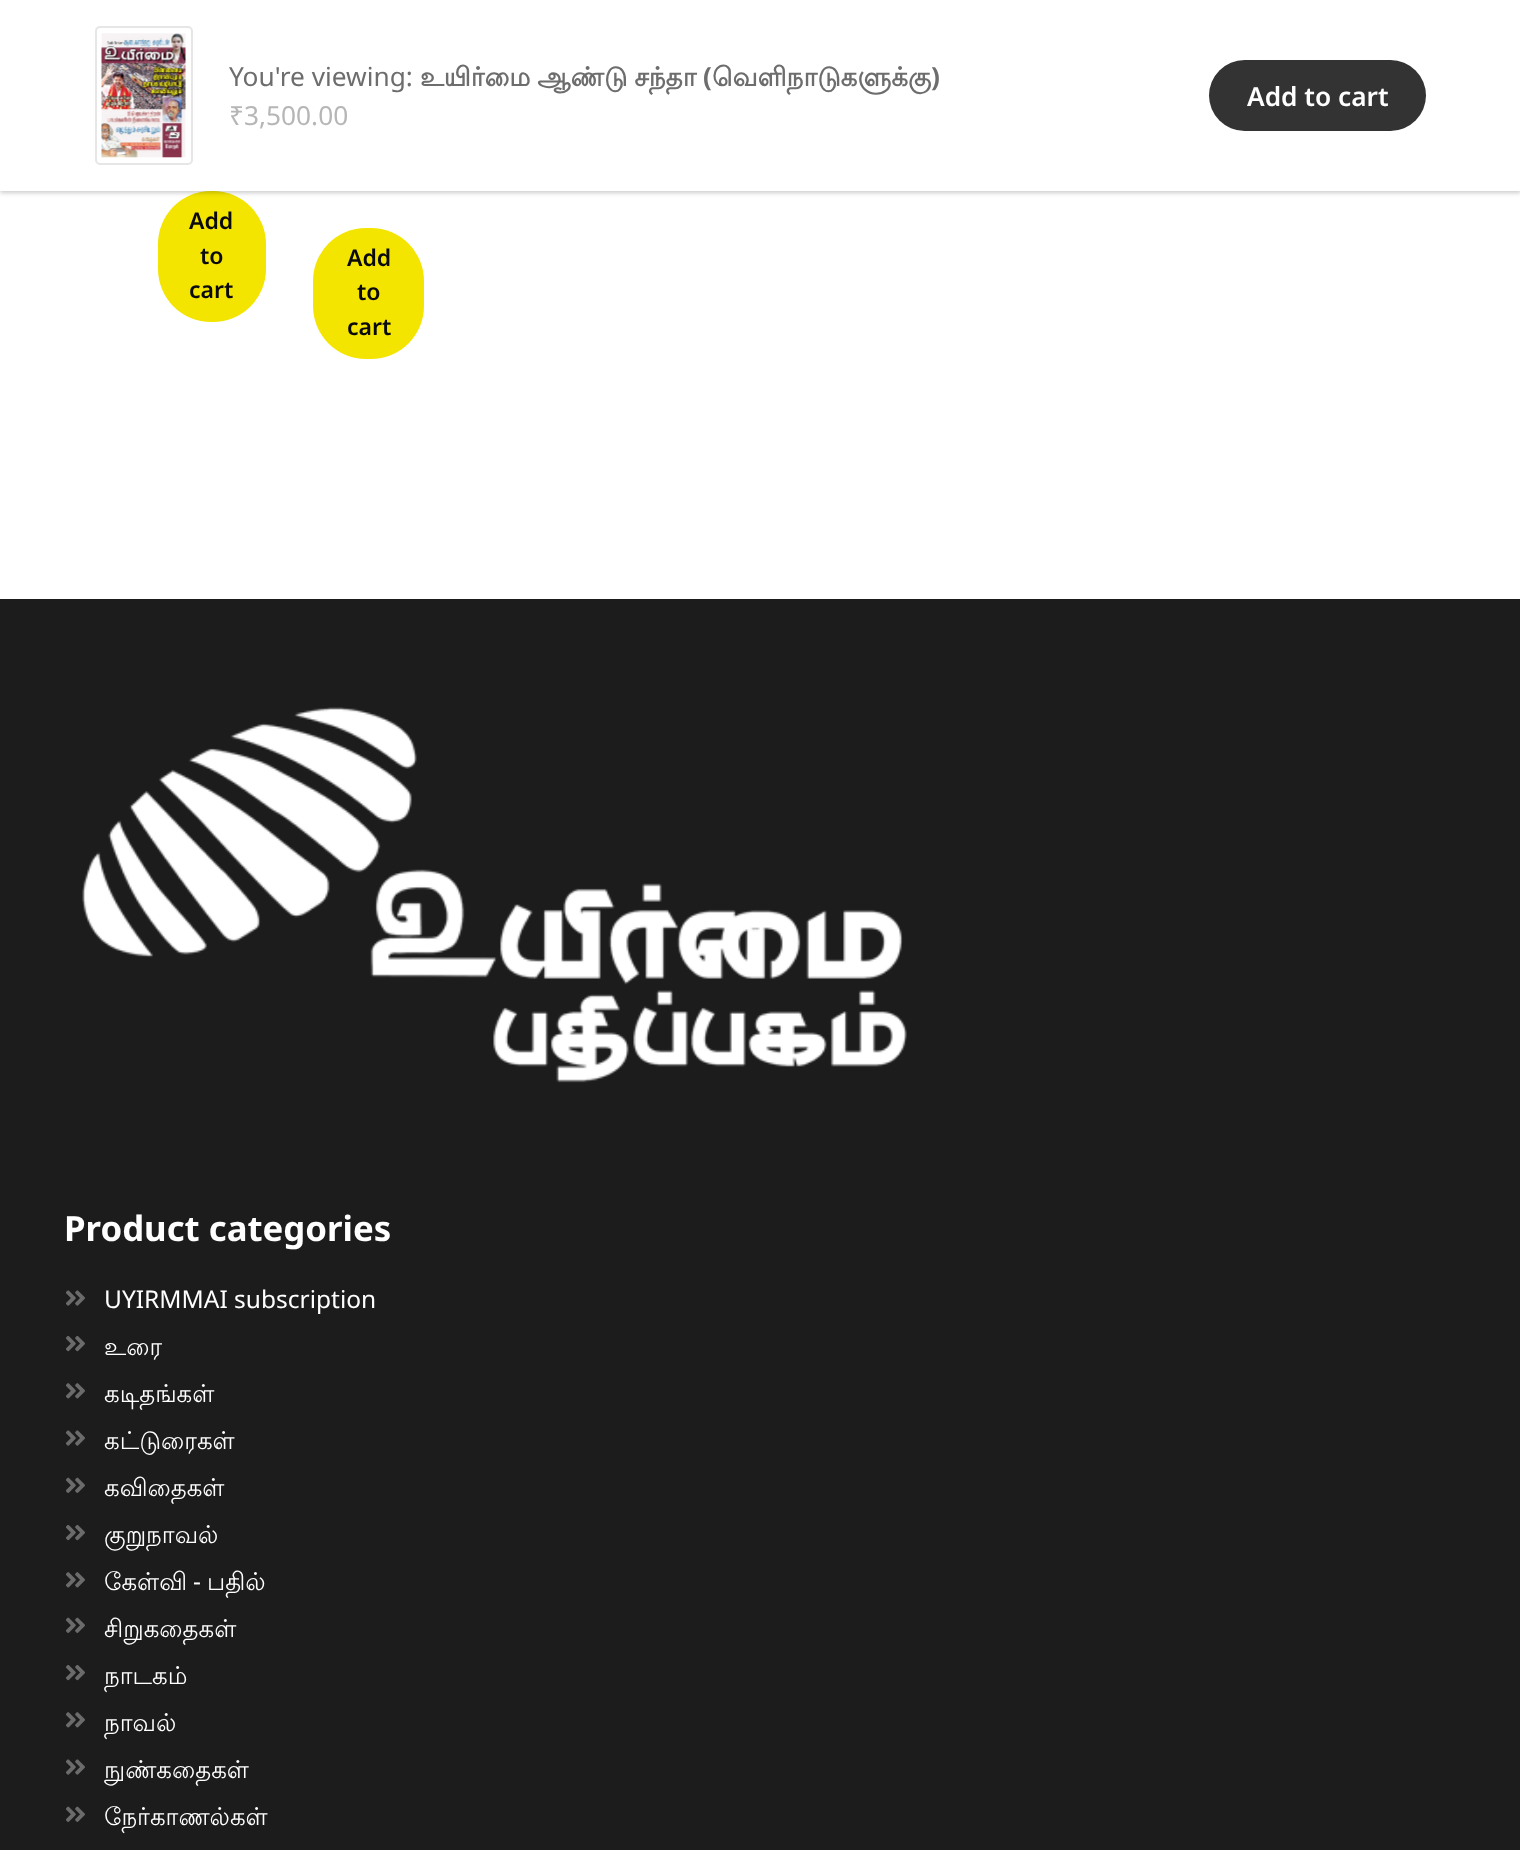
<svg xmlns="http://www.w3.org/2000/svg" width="1520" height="1850">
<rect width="100%" height="100%" fill="#fff"/>
<rect x="158" y="191" width="108" height="131" rx="53" fill="#f3e500"/>
<rect y="2" width="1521" height="191" fill="#00000033" filter="blur(2px)"/>
<rect width="1520" height="191" fill="#fff"/>
<rect x="96" y="27" width="96" height="137" rx="4" fill="none" stroke="#e6e6e6" stroke-width="2"/>
<image x="101" y="33" width="85" height="125" href="media/1.png"/>
<text x="229" y="86" style="font-family:Noto Sans;font-size:26.25px;fill:#6d6d6d">You're viewing:</text>
<text x="420" y="86" word-spacing="-1" style="font-family:Lohit Tamil;font-size:26.25px;font-weight:bold;fill:#6d6d6d">உயிர்மை ஆண்டு சந்தா</text>
<text x="703" y="86" style="font-family:Noto Sans;font-size:26.25px;font-weight:bold;fill:#6d6d6d">(</text>
<text x="712" y="86" style="font-family:Lohit Tamil;font-size:26.25px;font-weight:bold;fill:#6d6d6d">வெளிநாடுகளுக்கு</text>
<text x="931" y="86" style="font-family:Noto Sans;font-size:26.25px;font-weight:bold;fill:#6d6d6d">)</text>
<text x="229" y="125" style="font-family:Noto Sans;font-size:26.25px;fill:#b6b6b6">₹3,500.00</text>
<rect x="1209" y="60" width="217" height="71" rx="35.5" fill="#333"/>
<text x="1247" y="106" style="font-family:Noto Sans;font-size:26.25px;font-weight:600;fill:#fff">Add to cart</text>
<text x="189" y="229" style="font-family:Noto Sans;font-size:23px;font-weight:600;fill:#0a0a0a">Add</text>
<text x="200" y="264" style="font-family:Noto Sans;font-size:23px;font-weight:600;fill:#0a0a0a">to</text>
<text x="189" y="298" style="font-family:Noto Sans;font-size:23px;font-weight:600;fill:#0a0a0a">cart</text>
<rect x="313" y="228" width="111" height="131" rx="53" fill="#f3e500"/>
<text x="347" y="266" style="font-family:Noto Sans;font-size:23px;font-weight:600;fill:#0a0a0a">Add</text>
<text x="357" y="300" style="font-family:Noto Sans;font-size:23px;font-weight:600;fill:#0a0a0a">to</text>
<text x="347" y="335" style="font-family:Noto Sans;font-size:23px;font-weight:600;fill:#0a0a0a">cart</text>
<rect y="599" width="1520" height="1251" fill="#1c1c1c"/>
<image x="82" y="707" width="825" height="376" href="media/2.png"/>
<text x="64" y="1241" style="font-family:Noto Sans;font-size:34.75px;font-weight:bold;fill:#fff">Product categories</text>
<image x="66" y="1290" width="19" height="16" href="media/3.png"/>
<text x="104" y="1308" style="font-family:Noto Sans;font-size:24.5px;fill:#fff">UYIRMMAI subscription</text>
<image x="66" y="1336" width="19" height="16" href="media/4.png"/>
<text x="104" y="1355" style="font-family:Lohit Tamil;font-size:24.5px;fill:#fff">உரை</text>
<image x="66" y="1383" width="19" height="16" href="media/5.png"/>
<text x="104" y="1402" style="font-family:Lohit Tamil;font-size:24.5px;fill:#fff">கடிதங்கள்</text>
<image x="66" y="1430" width="19" height="16" href="media/3.png"/>
<text x="104" y="1449" style="font-family:Lohit Tamil;font-size:24.5px;fill:#fff">கட்டுரைகள்</text>
<image x="66" y="1477" width="19" height="16" href="media/6.png"/>
<text x="104" y="1496" style="font-family:Lohit Tamil;font-size:24.5px;fill:#fff">கவிதைகள்</text>
<image x="66" y="1525" width="19" height="16" href="media/4.png"/>
<text x="104" y="1543" style="font-family:Lohit Tamil;font-size:24.5px;fill:#fff">குறுநாவல்</text>
<image x="66" y="1572" width="19" height="16" href="media/5.png"/>
<text x="104" y="1590" style="font-family:Lohit Tamil;font-size:24.5px;fill:#fff">கேள்வி</text>
<text x="193" y="1590" style="font-family:Noto Sans;font-size:24.5px;fill:#fff">-</text>
<text x="207" y="1590" style="font-family:Lohit Tamil;font-size:24.5px;fill:#fff">பதில்</text>
<image x="66" y="1617" width="19" height="16" href="media/6.png"/>
<text x="104" y="1637" style="font-family:Lohit Tamil;font-size:24.5px;fill:#fff">சிறுகதைகள்</text>
<image x="66" y="1665" width="19" height="16" href="media/4.png"/>
<text x="104" y="1684" style="font-family:Lohit Tamil;font-size:24.5px;fill:#fff">நாடகம்</text>
<image x="66" y="1712" width="19" height="16" href="media/5.png"/>
<text x="104" y="1731" style="font-family:Lohit Tamil;font-size:24.5px;fill:#fff">நாவல்</text>
<image x="66" y="1759" width="19" height="16" href="media/3.png"/>
<text x="104" y="1778" style="font-family:Lohit Tamil;font-size:24.5px;fill:#fff">நுண்கதைகள்</text>
<image x="66" y="1806" width="19" height="16" href="media/6.png"/>
<text x="104" y="1825" style="font-family:Lohit Tamil;font-size:24.5px;fill:#fff">நேர்காணல்கள்</text>
</svg>
